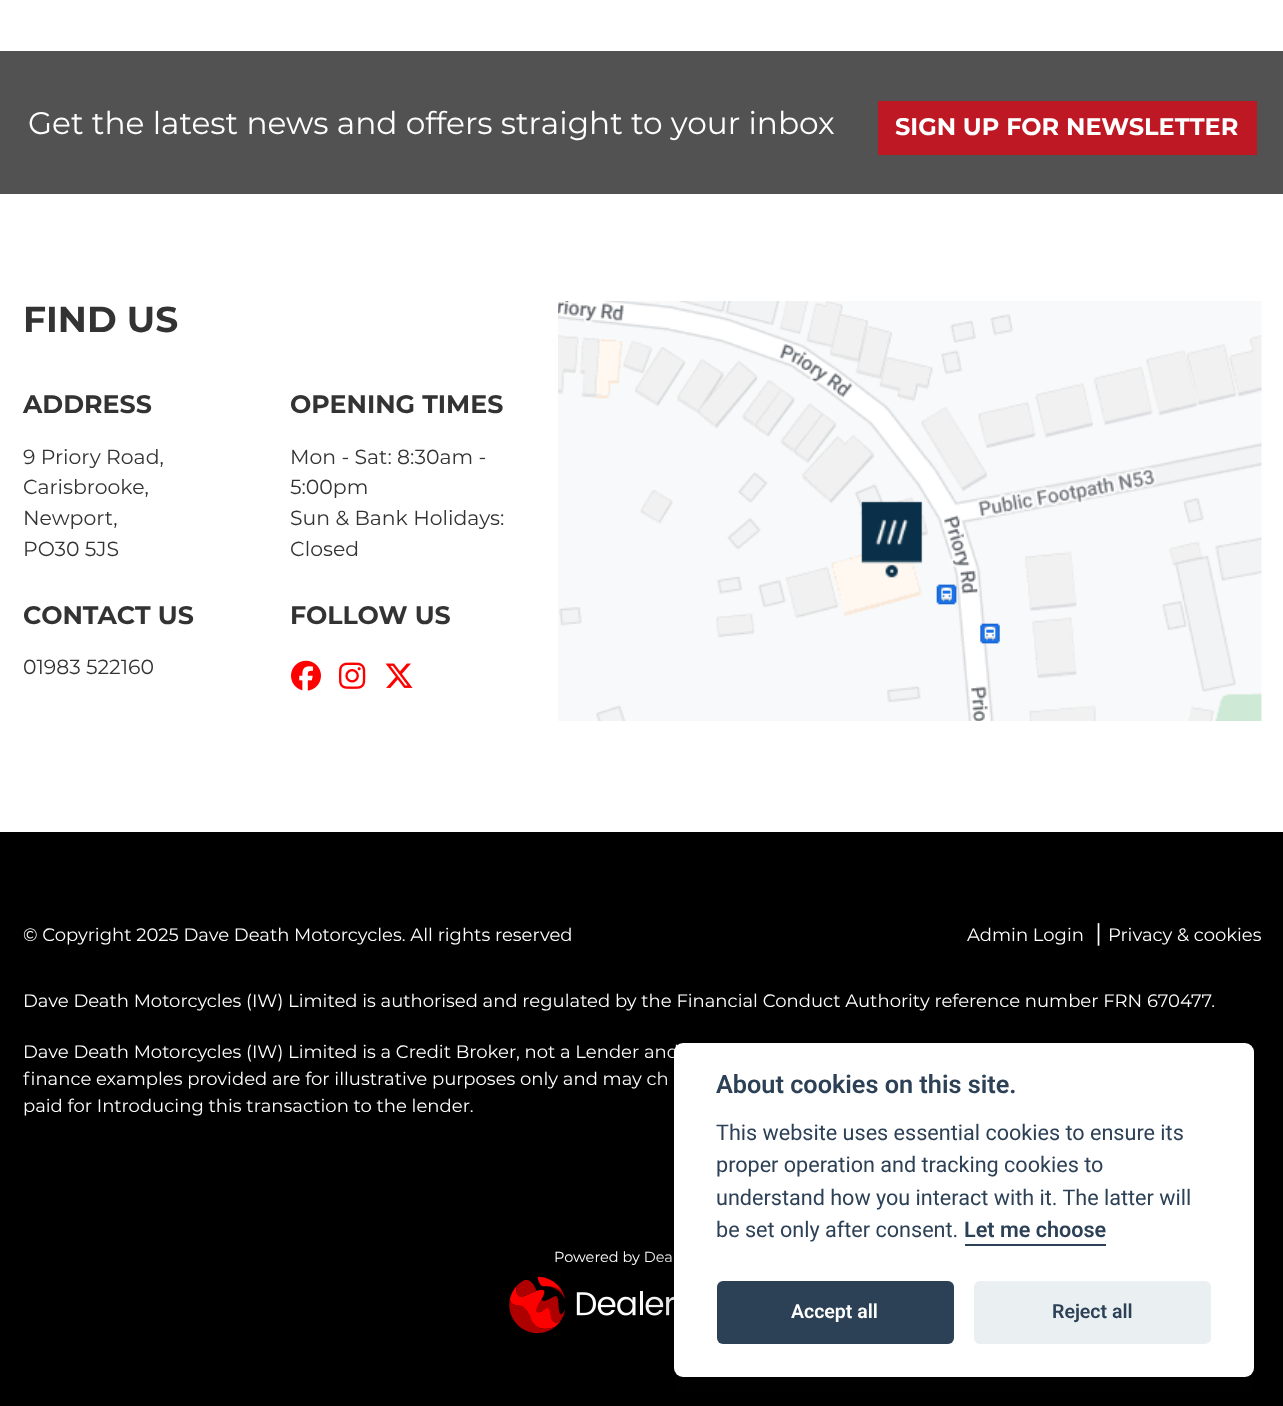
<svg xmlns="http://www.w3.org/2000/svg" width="1283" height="1406">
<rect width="100%" height="100%" fill="#fff"/>
<rect y="51" width="1283" height="143" fill="#525252"/>
<text x="28" y="134" style="font-family:Montserrat;font-size:31.2px;fill:#fff">Get the latest news and offers straight to your inbox</text>
<rect x="878" y="101" width="379" height="54" fill="#be1824"/>
<text x="895" y="135" style="font-family:Montserrat;font-size:24px;font-weight:bold;fill:#fff">SIGN UP FOR NEWSLETTER</text>
<text x="23" y="332" style="font-family:Montserrat;font-size:36px;font-weight:bold;fill:#333">FIND US</text>
<text x="23" y="413" style="font-family:Montserrat;font-size:25.25px;font-weight:bold;fill:#333">ADDRESS</text>
<text x="23" y="464" style="font-family:Montserrat;font-size:20.4px;fill:#333">9 Priory Road,</text>
<text x="23" y="494" style="font-family:Montserrat;font-size:20.4px;fill:#333">Carisbrooke,</text>
<text x="23" y="525" style="font-family:Montserrat;font-size:20.4px;fill:#333">Newport,</text>
<text x="23" y="556" style="font-family:Montserrat;font-size:20.4px;fill:#333">PO30 5JS</text>
<text x="23" y="624" style="font-family:Montserrat;font-size:25.25px;font-weight:bold;fill:#333">CONTACT US</text>
<text x="23" y="674" style="font-family:Montserrat;font-size:20.4px;fill:#333">01983 522160</text>
<text x="290" y="413" style="font-family:Montserrat;font-size:25.25px;font-weight:bold;fill:#333">OPENING TIMES</text>
<text x="290" y="464" style="font-family:Montserrat;font-size:20.4px;fill:#333">Mon - Sat: 8:30am -</text>
<text x="290" y="494" style="font-family:Montserrat;font-size:20.4px;fill:#333">5:00pm</text>
<text x="290" y="525" style="font-family:Montserrat;font-size:20.4px;fill:#333">Sun &amp; Bank Holidays:</text>
<text x="290" y="556" style="font-family:Montserrat;font-size:20.4px;fill:#333">Closed</text>
<text x="290" y="624" style="font-family:Montserrat;font-size:25.25px;font-weight:bold;fill:#333">FOLLOW US</text>
<image x="291" y="660" width="30" height="31" href="media/1.png"/>
<image x="339" y="662" width="27" height="27" href="media/2.png"/>
<image x="385" y="663" width="28" height="25" href="media/3.png"/>
<image x="558" y="301" width="704" height="420" href="media/4.png"/>
<rect y="832" width="1283" height="574" fill="#000"/>
<text x="23" y="941" style="font-family:Montserrat;font-size:18px;fill:#fff">© Copyright 2025 Dave Death Motorcycles. All rights reserved</text>
<text x="967" y="941" style="font-family:Montserrat;font-size:18px;fill:#fff">Admin Login</text>
<text x="1095" y="941" style="font-family:Montserrat;font-size:24px;fill:#fff">|</text>
<text x="1108" y="941" style="font-family:Montserrat;font-size:18px;fill:#fff">Privacy &amp; cookies</text>
<text x="23" y="1007" style="font-family:Montserrat;font-size:18px;fill:#fff">Dave Death Motorcycles (IW) Limited is authorised and regulated by the Financial Conduct Authority reference number FRN 670477.</text>
<text x="23" y="1058" style="font-family:Montserrat;font-size:18px;fill:#fff">Dave Death Motorcycles (IW) Limited is a Credit Broker, not a Lender and</text>
<text x="23" y="1085" style="font-family:Montserrat;font-size:18px;fill:#fff">finance examples provided are for illustrative purposes only and may ch</text>
<text x="23" y="1112" style="font-family:Montserrat;font-size:18px;fill:#fff">paid for Introducing this transaction to the lender.</text>
<text x="554" y="1262" style="font-family:Montserrat;font-size:14.5px;fill:#fff">Powered by Deal</text>
<image x="509" y="1276" width="165" height="58" href="media/5.png"/>
<rect x="674" y="1058" width="580" height="334" rx="9" fill="#02020347" filter="blur(22.5px)"/>
<rect x="674" y="1043" width="580" height="334" rx="9" fill="#fff"/>
<text x="716" y="1093" style="font-family:Roboto;font-size:25.25px;font-weight:600;fill:#2d4156">About cookies on this site.</text>
<text x="716" y="1140" style="font-family:Roboto;font-size:21.6px;fill:#2d4156">This website uses essential cookies to ensure its</text>
<text x="716" y="1172" style="font-family:Roboto;font-size:21.6px;fill:#2d4156">proper operation and tracking cookies to</text>
<text x="716" y="1205" style="font-family:Roboto;font-size:21.6px;fill:#2d4156">understand how you interact with it. The latter will</text>
<text x="716" y="1237" style="font-family:Roboto;font-size:21.6px;fill:#2d4156">be set only after consent.</text>
<text x="964" y="1237" style="font-family:Roboto;font-size:21.6px;font-weight:600;fill:#2d4156">Let me choose</text>
<rect x="965" y="1244" width="141" height="2" fill="#2d4156"/>
<rect x="717" y="1281" width="237" height="63" rx="6" fill="#2d4156"/>
<text x="791" y="1318" style="font-family:Roboto;font-size:19.5px;font-weight:600;fill:#fff">Accept all</text>
<rect x="974" y="1281" width="237" height="63" rx="6" fill="#eaeff2"/>
<text x="1052" y="1318" style="font-family:Roboto;font-size:19.5px;font-weight:600;fill:#2d4156">Reject all</text>
</svg>
